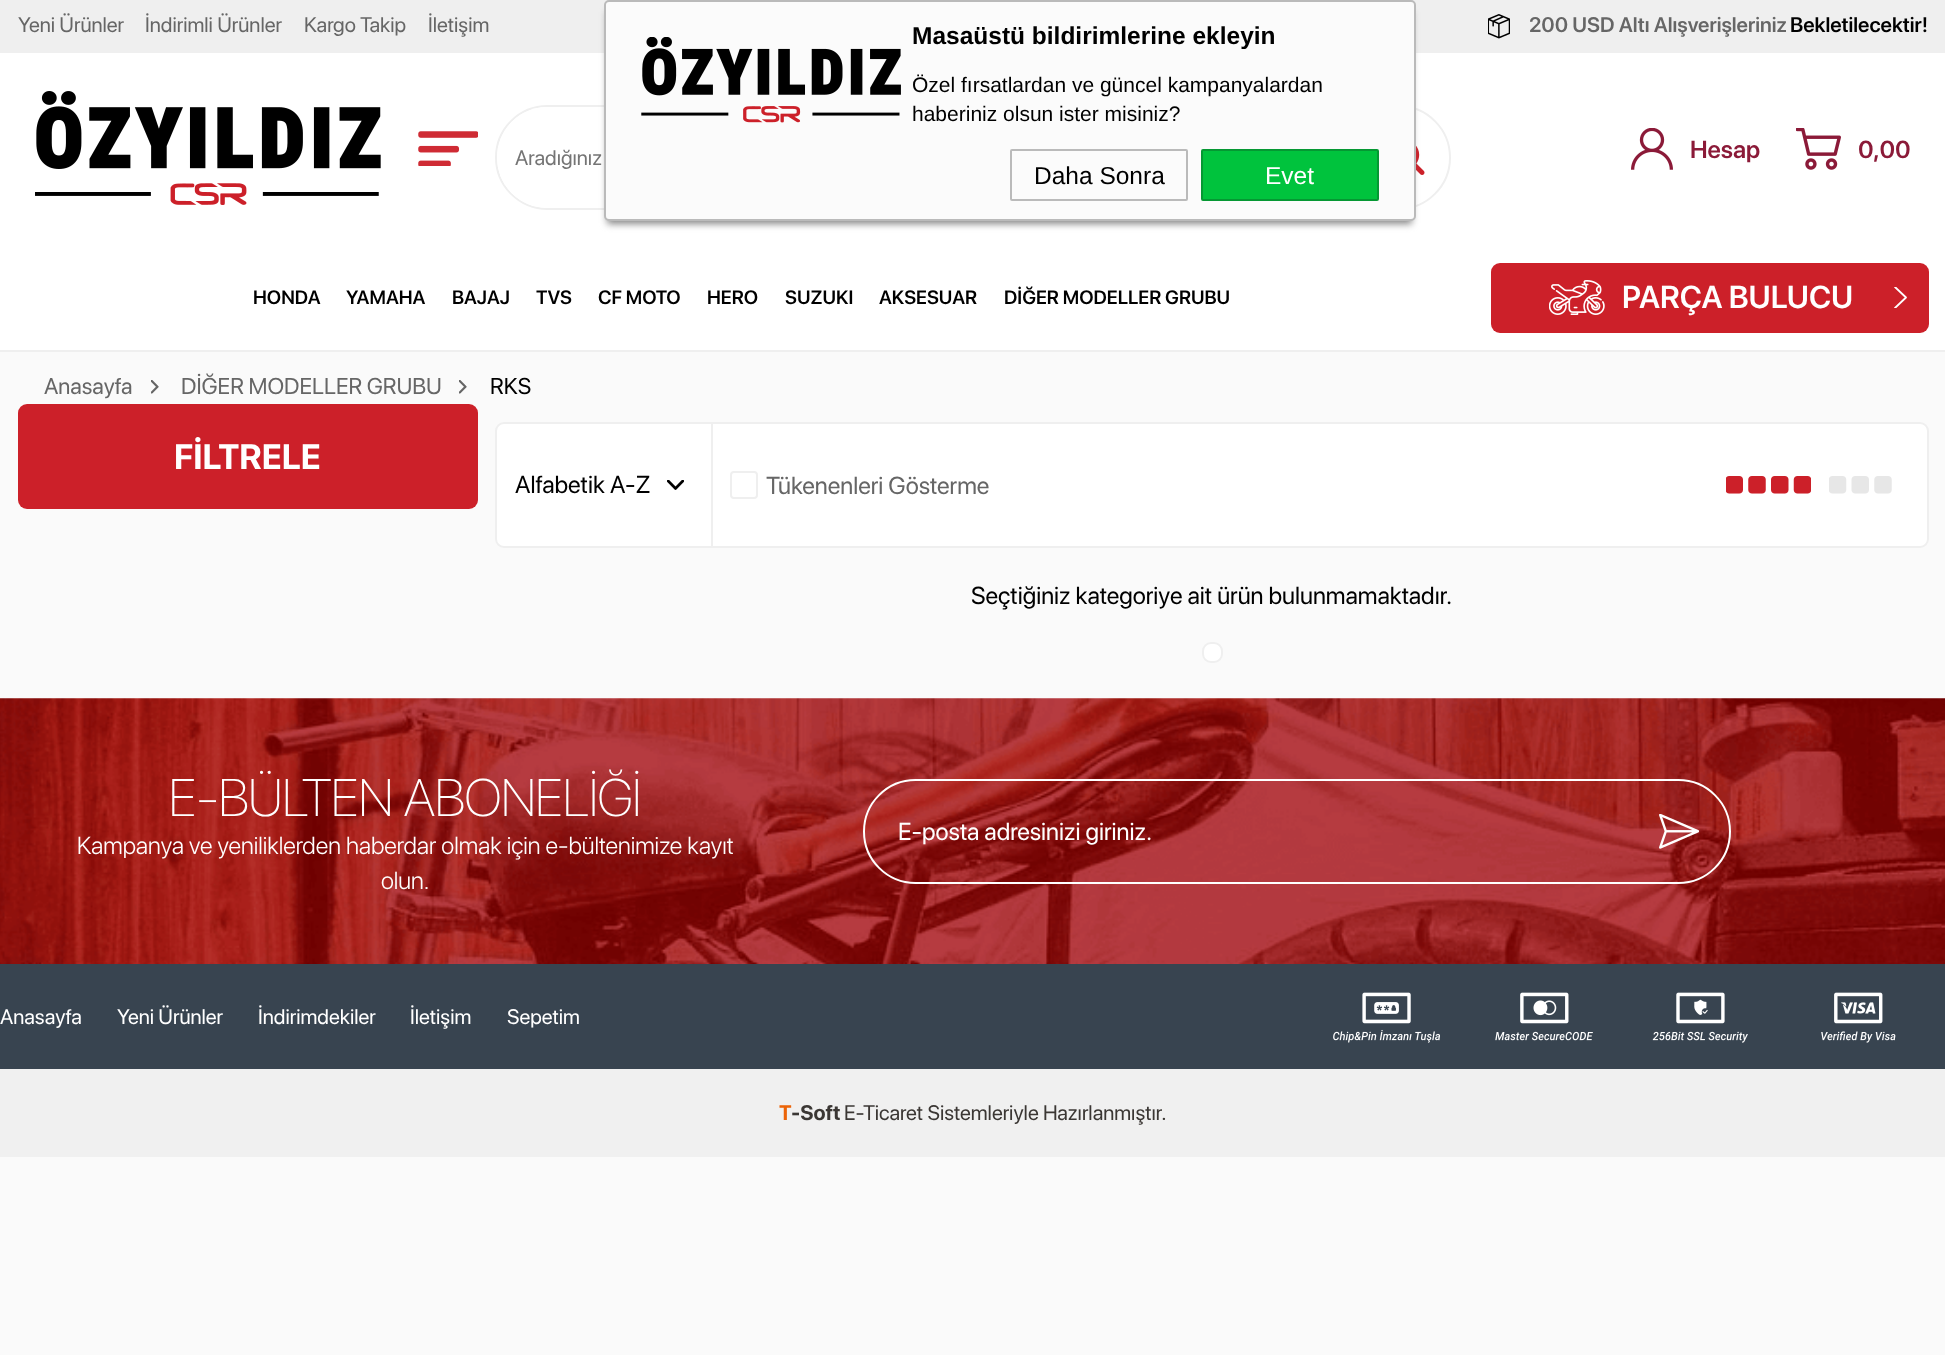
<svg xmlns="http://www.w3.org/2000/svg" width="1945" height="1355">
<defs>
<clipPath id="clip1"><rect x="1894" y="287" width="14" height="21"/></clipPath>
</defs>
<rect width="100%" height="100%" fill="#fafafa"/>
<rect y="350" width="1945" height="2" fill="#efefef"/>
<rect y="53" width="1945" height="297" fill="#fff"/>
<rect width="1945" height="53" fill="#efefef"/>
<text x="18" y="32" style="font-family:SF Pro Display;font-size:21px;fill:#666">Yeni Ürünler</text>
<text x="145" y="32" style="font-family:SF Pro Display;font-size:21px;fill:#666">İndirimli Ürünler</text>
<text x="304" y="32" style="font-family:SF Pro Display;font-size:21px;fill:#666">Kargo Takip</text>
<text x="428" y="32" style="font-family:SF Pro Display;font-size:21px;fill:#666">İletişim</text>
<image x="1488" y="14" width="22" height="25" href="media/1.png"/>
<text x="1529" y="32" style="font-family:SF Pro Display;font-size:21px;font-weight:600;fill:#666">200 USD Altı Alışverişleriniz</text>
<text x="1790" y="32" style="font-family:SF Pro Display;font-size:21px;font-weight:600;fill:#000">Bekletilecektir!</text>
<image x="35" y="91" width="346" height="114" href="media/2.png"/>
<image x="418" y="131" width="60" height="35" href="media/3.png"/>
<rect x="496" y="106" width="954" height="103" rx="51.5" fill="none" stroke="#efefef" stroke-width="2"/>
<path d="M547.5 107h817.5v101h-817.5c-28 0-50.5-22.5-50.5-50.5c0-28 22.5-50.5 50.5-50.5z" fill="#fff"/>
<text x="515" y="165" style="font-family:SF Pro Display;font-size:21px;fill:#757575">Aradığınız</text>
<image x="1416" y="145" width="9" height="30" href="media/4.png"/>
<image x="1631" y="128" width="42" height="42" href="media/5.png"/>
<text x="1690" y="158" style="font-family:SF Pro Display;font-size:24.5px;font-weight:600;fill:#8b1a38">Hesap</text>
<image x="1796" y="128" width="45" height="42" href="media/6.png"/>
<text x="1858" y="158" style="font-family:SF Pro Display;font-size:24.5px;font-weight:600;fill:#8b1a38">0,00</text>
<text x="253" y="304" style="font-family:SF Pro Display;font-size:19.25px;font-weight:600;fill:#000">HONDA</text>
<text x="346" y="304" style="font-family:SF Pro Display;font-size:19.25px;font-weight:600;fill:#000">YAMAHA</text>
<text x="452" y="304" style="font-family:SF Pro Display;font-size:19.25px;font-weight:600;fill:#000">BAJAJ</text>
<text x="536" y="304" style="font-family:SF Pro Display;font-size:19.25px;font-weight:600;fill:#000">TVS</text>
<text x="598" y="304" style="font-family:SF Pro Display;font-size:19.25px;font-weight:600;fill:#000">CF MOTO</text>
<text x="707" y="304" style="font-family:SF Pro Display;font-size:19.25px;font-weight:600;fill:#000">HERO</text>
<text x="785" y="304" style="font-family:SF Pro Display;font-size:19.25px;font-weight:600;fill:#000">SUZUKI</text>
<text x="879" y="304" style="font-family:SF Pro Display;font-size:19.25px;font-weight:600;fill:#000">AKSESUAR</text>
<text x="1004" y="304" style="font-family:SF Pro Display;font-size:19.25px;font-weight:600;fill:#000">DİĞER MODELLER GRUBU</text>
<rect x="1491" y="263" width="438" height="70" rx="9" fill="#cc2029"/>
<g clip-path="url(#clip1)">
<path d="M1895 287l11 10.5l-11 10.5" fill="none" stroke="#fff" stroke-width="1.8" stroke-linecap="round" stroke-linejoin="round"/>
</g>
<image x="1549" y="280" width="56" height="35" href="media/7.png"/>
<text x="1622" y="308" style="font-family:SF Pro Display;font-size:31.5px;font-weight:600;fill:#fff">PARÇA BULUCU</text>
<text x="44" y="394" style="font-family:SF Pro Display;font-size:22.75px;fill:#666">Anasayfa</text>
<image x="151" y="380" width="8" height="14" href="media/8.png"/>
<text x="181" y="394" style="font-family:SF Pro Display;font-size:22.75px;fill:#666">DİĞER MODELLER GRUBU</text>
<image x="459" y="380" width="8" height="14" href="media/8.png"/>
<text x="490" y="394" style="font-family:SF Pro Display;font-size:22.75px;fill:#000">RKS</text>
<rect x="18" y="404" width="460" height="105" rx="9" fill="#cc2029"/>
<text x="174" y="469" style="font-family:SF Pro Display;font-size:35px;font-weight:bold;fill:#fff">FİLTRELE</text>
<rect x="496" y="423" width="1432" height="124" rx="8" fill="#fff" stroke="#efefef" stroke-width="2"/>
<image x="667" y="480" width="17" height="10" href="media/9.png"/>
<rect x="711" y="424" width="2" height="122" fill="#efefef"/>
<text x="515" y="493" style="font-family:SF Pro Display;font-size:24.5px;fill:#000">Alfabetik A-Z</text>
<rect x="731" y="472" width="26" height="26" rx="3" fill="none" stroke="#efefef" stroke-width="2"/>
<text x="766" y="494" style="font-family:SF Pro Display;font-size:24.5px;fill:#666">Tükenenleri Gösterme</text>
<image x="1726" y="476" width="85" height="18" href="media/10.png"/>
<image x="1829" y="476" width="63" height="18" href="media/11.png"/>
<text x="971" y="604" style="font-family:SF Pro Display;font-size:24.5px;fill:#000">Seçtiğiniz kategoriye ait ürün bulunmamaktadır.</text>
<rect x="1203" y="643" width="19" height="19" rx="8" fill="#fff" stroke="#efefef" stroke-width="2"/>
<image x="0" y="698" width="1945" height="266" href="media/12.png"/>
<text x="169" y="816" style="font-family:SF Pro Display;font-size:52.5px;font-weight:100;fill:#fff">E-BÜLTEN ABONELİĞİ</text>
<text x="77" y="854" style="font-family:SF Pro Display;font-size:24.5px;font-weight:300;fill:#fff">Kampanya ve yeniliklerden haberdar olmak için e-bültenimize kayıt</text>
<text x="381" y="889" style="font-family:SF Pro Display;font-size:24.5px;font-weight:300;fill:#fff">olun.</text>
<rect x="864" y="780" width="866" height="103" rx="51.5" fill="none" stroke="#fff" stroke-width="2"/>
<text x="898" y="840" style="font-family:SF Pro Display;font-size:24.5px;fill:#fff">E-posta adresinizi giriniz.</text>
<image x="1659" y="814" width="40" height="35" href="media/13.png"/>
<rect y="964" width="1945" height="105" fill="#384450"/>
<text x="0" y="1024" style="font-family:SF Pro Display;font-size:21px;fill:#fff">Anasayfa</text>
<text x="117" y="1024" style="font-family:SF Pro Display;font-size:21px;fill:#fff">Yeni Ürünler</text>
<text x="258" y="1024" style="font-family:SF Pro Display;font-size:21px;fill:#fff">İndirimdekiler</text>
<text x="410" y="1024" style="font-family:SF Pro Display;font-size:21px;fill:#fff">İletişim</text>
<text x="507" y="1024" style="font-family:SF Pro Display;font-size:21px;fill:#fff">Sepetim</text>
<image x="1333" y="992" width="107" height="51" href="media/14.png"/>
<image x="1495" y="992" width="98" height="49" href="media/15.png"/>
<image x="1652" y="992" width="96" height="51" href="media/16.png"/>
<image x="1821" y="992" width="75" height="51" href="media/17.png"/>
<rect y="1069" width="1945" height="88" fill="#f0f0f0"/>
<text x="779" y="1120" style="font-family:SF Pro Display;font-size:21px;font-weight:bold;fill:#ec6408">T</text>
<text x="791" y="1120" style="font-family:SF Pro Display;font-size:21px;font-weight:bold;fill:#3b3734">-Soft</text>
<text x="844" y="1120" style="font-family:SF Pro Display;font-size:21px;fill:#3b3734">E-Ticaret Sistemleriyle Hazırlanmıştır.</text>
<rect x="607" y="11" width="805" height="213" rx="2" fill="#888" filter="blur(3.5px)"/>
<rect x="605" y="1" width="810" height="219" rx="4" fill="#fbfbfb" stroke="#bababa" stroke-width="2"/>
<image x="641" y="37" width="260" height="86" href="media/18.png"/>
<text x="912" y="44" style="font-family:Liberation Sans;font-size:24.5px;font-weight:bold;fill:#000">Masaüstü bildirimlerine ekleyin</text>
<text x="912" y="92" style="font-family:Liberation Sans;font-size:21px;fill:#000">Özel fırsatlardan ve güncel kampanyalardan</text>
<text x="912" y="121" style="font-family:Liberation Sans;font-size:21px;fill:#000">haberiniz olsun ister misiniz?</text>
<rect x="1011" y="150" width="176" height="50" rx="1" fill="none" stroke="#bababa" stroke-width="2"/>
<text x="1034" y="184" style="font-family:Liberation Sans;font-size:24.5px;fill:#000">Daha Sonra</text>
<rect x="1202" y="150" width="176" height="50" rx="1" fill="#00c33d" stroke="#059833" stroke-width="2"/>
<text x="1265" y="184" style="font-family:Liberation Sans;font-size:24.5px;fill:#fff">Evet</text>
</svg>
